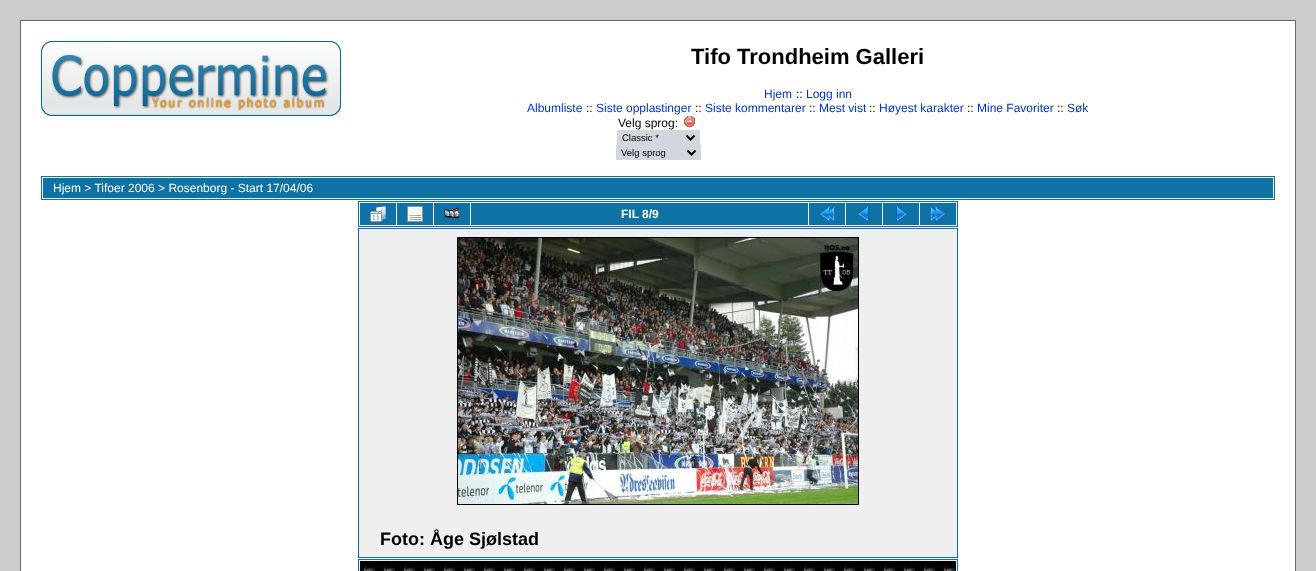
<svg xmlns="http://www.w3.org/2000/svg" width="1316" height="571">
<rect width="100%" height="100%" fill="#ccc"/>
<rect x="20.5" y="20.5" width="1275" height="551" fill="#fff" stroke="#666"/>
<image x="41" y="41" width="300" height="75" href="media/1.png"/>
<text x="691" y="64" style="font-family:Liberation Sans;font-size:22px;font-weight:bold;fill:#000">Tifo Trondheim Galleri</text>
<text x="764" y="98" style="font-family:Liberation Sans;font-size:12px;fill:#03c">Hjem</text>
<text x="796" y="98" style="font-family:Liberation Sans;font-size:12px;fill:#000">::</text>
<text x="806" y="98" style="font-family:Liberation Sans;font-size:12px;fill:#03c">Logg inn</text>
<text x="527" y="112" style="font-family:Liberation Sans;font-size:12px;fill:#03c">Albumliste</text>
<text x="586" y="112" style="font-family:Liberation Sans;font-size:12px;fill:#000">::</text>
<text x="596" y="112" style="font-family:Liberation Sans;font-size:12px;fill:#03c">Siste opplastinger</text>
<text x="695" y="112" style="font-family:Liberation Sans;font-size:12px;fill:#000">::</text>
<text x="705" y="112" style="font-family:Liberation Sans;font-size:12px;fill:#03c">Siste kommentarer</text>
<text x="809" y="112" style="font-family:Liberation Sans;font-size:12px;fill:#000">::</text>
<text x="819" y="112" style="font-family:Liberation Sans;font-size:12px;fill:#03c">Mest vist</text>
<text x="869" y="112" style="font-family:Liberation Sans;font-size:12px;fill:#000">::</text>
<text x="879" y="112" style="font-family:Liberation Sans;font-size:12px;fill:#03c">Høyest karakter</text>
<text x="967" y="112" style="font-family:Liberation Sans;font-size:12px;fill:#000">::</text>
<text x="977" y="112" style="font-family:Liberation Sans;font-size:12px;fill:#03c">Mine Favoriter</text>
<text x="1057" y="112" style="font-family:Liberation Sans;font-size:12px;fill:#000">::</text>
<text x="1067" y="112" style="font-family:Liberation Sans;font-size:12px;fill:#03c">Søk</text>
<text x="618" y="127" style="font-family:Liberation Sans;font-size:12px;fill:#000">Velg sprog:</text>
<image x="684" y="116" width="11" height="11" href="media/2.png"/>
<rect x="617" y="130" width="83" height="15" fill="#d1d7dc"/>
<path d="M686.5 135.5l4 4l4-4" fill="none" stroke="#000" stroke-width="2"/>
<text x="622" y="141" style="font-family:Liberation Sans;font-size:9.5px;fill:#000">Classic *</text>
<rect x="616" y="145" width="85" height="15" fill="#d1d7dc"/>
<path d="M687.5 150.5l4 4l4-4" fill="none" stroke="#000" stroke-width="2"/>
<text x="621" y="156" style="font-family:Liberation Sans;font-size:9.5px;fill:#000">Velg sprog</text>
<rect x="41.5" y="176.5" width="1233" height="23" fill="#efefef" stroke="#0e72a4"/>
<rect x="43" y="178" width="1230" height="20" fill="#0e72a4"/>
<text x="53" y="192" style="font-family:Liberation Sans;font-size:12px;fill:#fff">Hjem &gt; Tifoer 2006 &gt; Rosenborg - Start 17/04/06</text>
<rect x="358.5" y="201.5" width="599" height="25" fill="#efefef" stroke="#0e72a4"/>
<rect x="360" y="203" width="36" height="22" fill="#0e72a4"/>
<image x="370" y="206" width="16" height="16" href="media/3.png"/>
<rect x="397" y="203" width="36" height="22" fill="#0e72a4"/>
<image x="407" y="206" width="16" height="16" href="media/4.png"/>
<rect x="434" y="203" width="36" height="22" fill="#0e72a4"/>
<image x="444" y="207" width="16" height="12" href="media/5.png"/>
<rect x="471" y="203" width="337" height="22" fill="#0e72a4"/>
<text x="621" y="218" style="font-family:Liberation Sans;font-size:12px;font-weight:bold;fill:#fff">FIL 8/9</text>
<rect x="809" y="203" width="36" height="22" fill="#0e72a4"/>
<image x="819" y="206" width="16" height="16" href="media/6.png"/>
<rect x="846" y="203" width="36" height="22" fill="#0e72a4"/>
<image x="857" y="206" width="12" height="16" href="media/7.png"/>
<rect x="883" y="203" width="36" height="22" fill="#0e72a4"/>
<image x="896" y="206" width="12" height="16" href="media/8.png"/>
<rect x="920" y="203" width="36" height="22" fill="#0e72a4"/>
<image x="930" y="206" width="16" height="16" href="media/9.png"/>
<rect x="358.5" y="228.5" width="599" height="329" fill="#efefef" stroke="#0e72a4"/>
<rect x="457.5" y="237.5" width="401" height="267" fill="none" stroke="#000"/>
<image x="458" y="238" width="400" height="266" href="media/10.png"/>
<text x="380" y="545" style="font-family:Liberation Sans;font-size:18px;font-weight:bold;fill:#000">Foto: Åge Sjølstad</text>
<rect x="358.5" y="559.5" width="599" height="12" fill="#efefef" stroke="#0e72a4"/>
<image x="360" y="561" width="596" height="10" href="media/11.png"/>
</svg>
